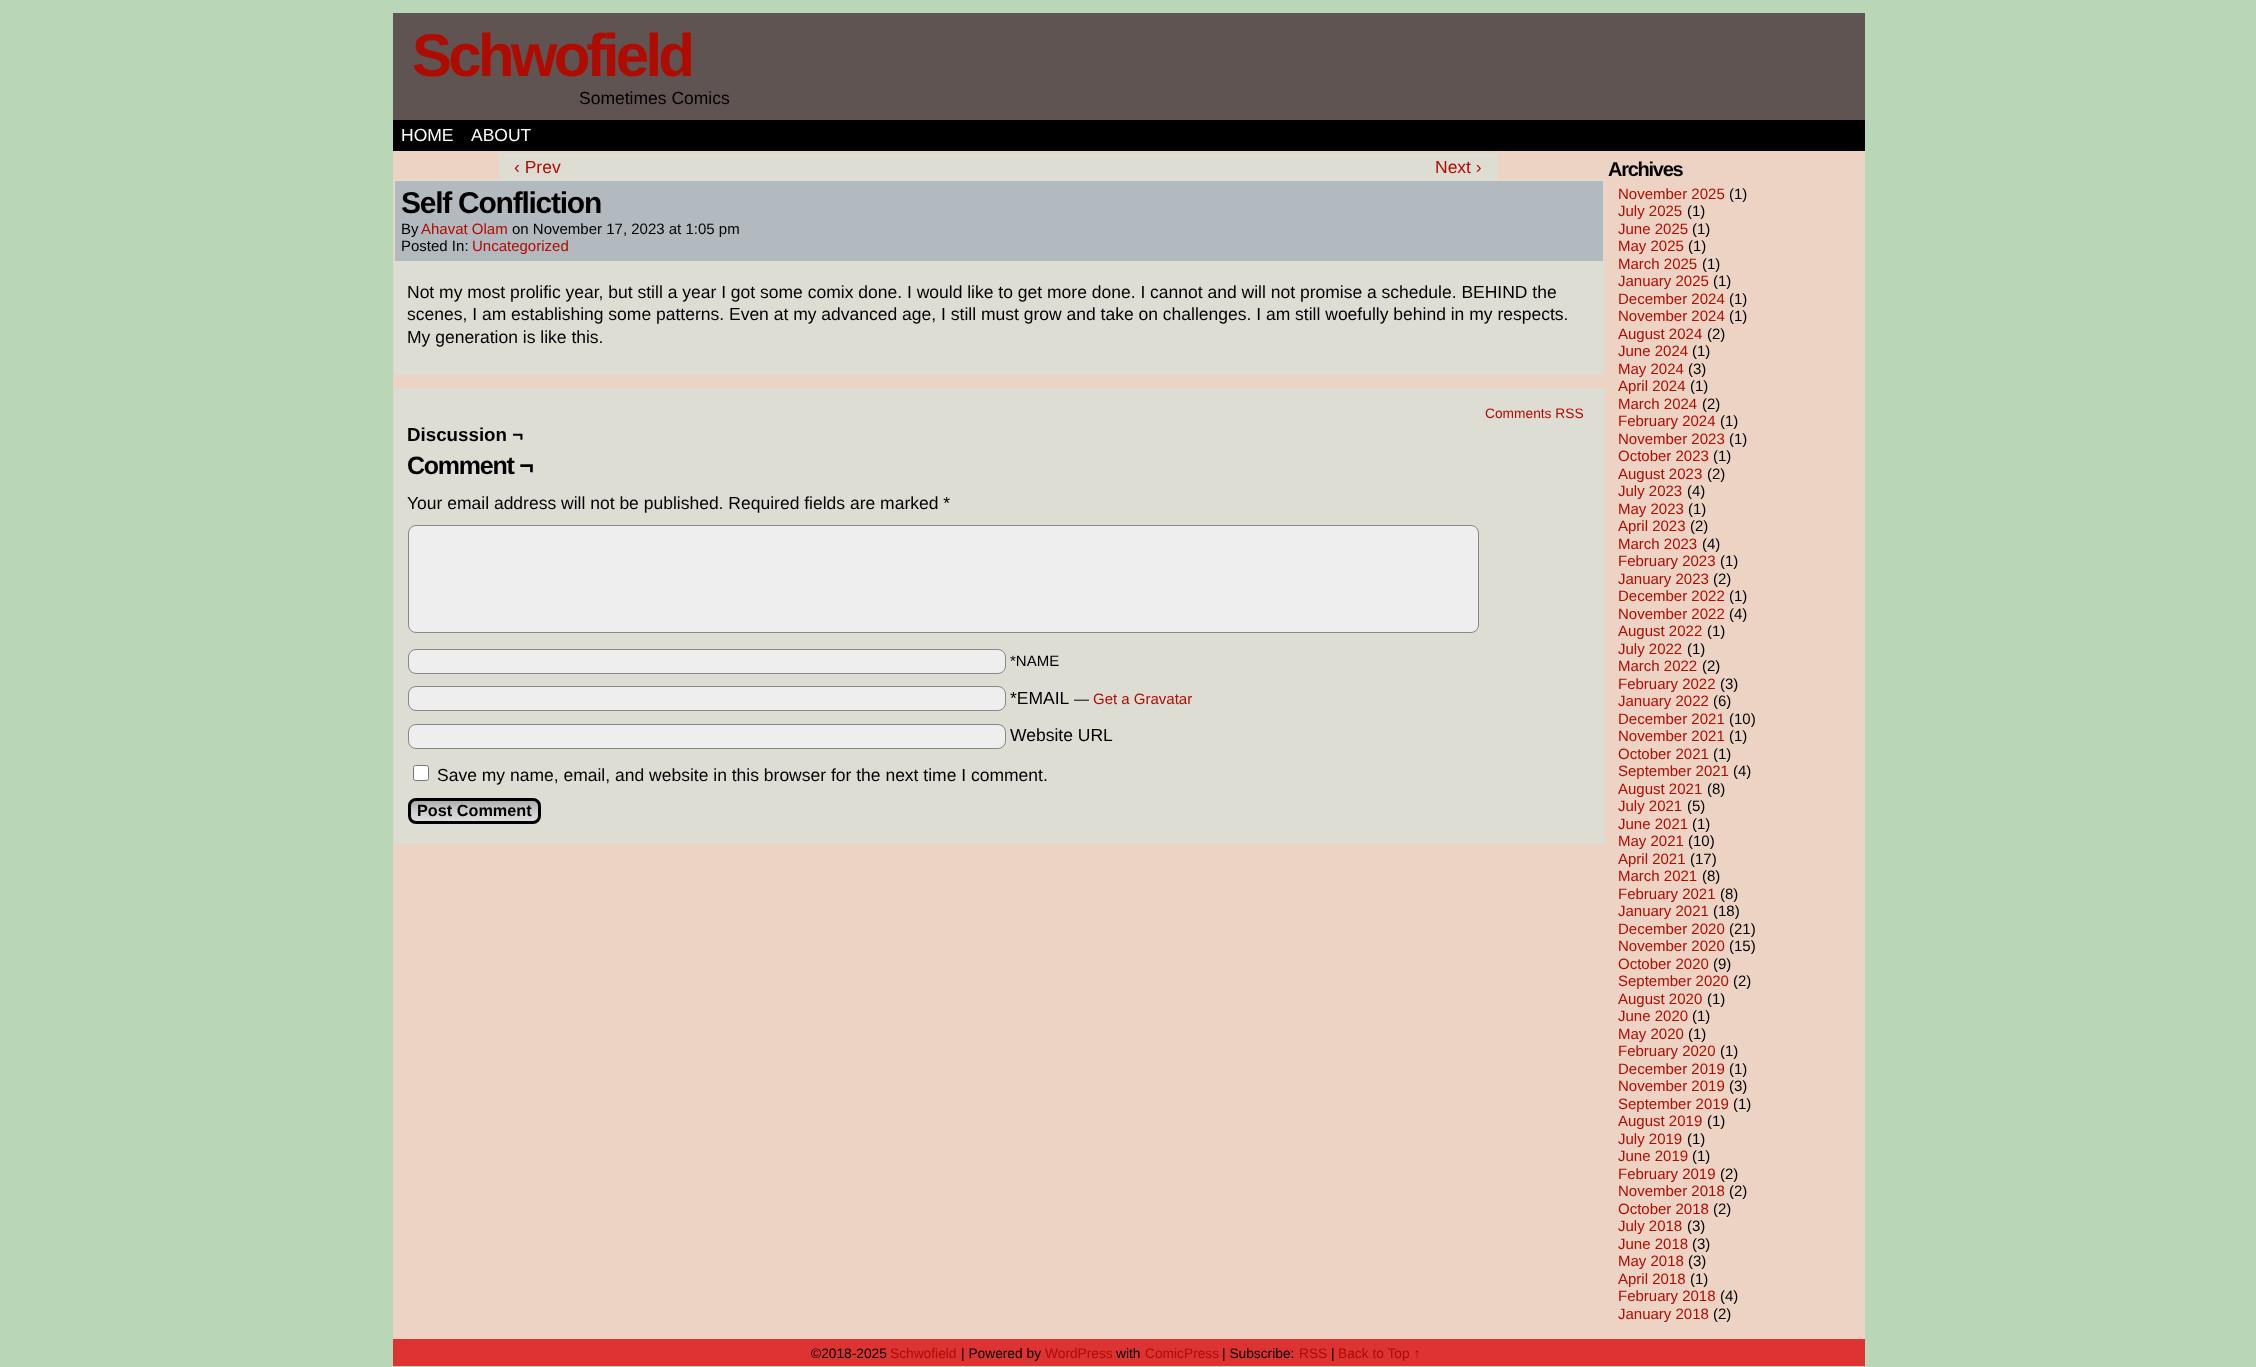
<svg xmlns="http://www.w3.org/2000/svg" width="2256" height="1367">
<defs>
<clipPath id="clip1"><rect x="408" y="798" width="133" height="26" rx="8"/></clipPath>
<linearGradient id="g1" gradientUnits="userSpaceOnUse" x1="474" y1="800" x2="474" y2="821"><stop offset="0" stop-color="#aaa"/><stop offset="0.5" stop-color="#ccc"/><stop offset="1" stop-color="#ddd"/></linearGradient>
</defs>
<rect width="100%" height="100%" fill="#b9d6b6"/>
<rect x="393" y="151" width="1472" height="1188" fill="#edd3c4"/>
<rect x="393" y="13" width="1472" height="107" fill="#605453"/>
<text x="412" y="76" style="font-family:Liberation Sans;font-size:60px;font-weight:bold;letter-spacing:-3.75px;fill:#b00b00">Schwofield</text>
<text x="579" y="104" style="font-family:Liberation Sans;font-size:17.5px;fill:#000">Sometimes Comics</text>
<rect x="393" y="120" width="1472" height="31" fill="#000"/>
<text x="401" y="141" style="font-family:Liberation Sans;font-size:17.5px;fill:#fff">HOME</text>
<text x="471" y="141" style="font-family:Liberation Sans;font-size:17.5px;fill:#fff">ABOUT</text>
<rect x="499" y="153" width="999" height="27" fill="#ddddd4"/>
<text x="514" y="173" style="font-family:Liberation Sans;font-size:17.5px;fill:#b00b00">‹ Prev</text>
<text x="1435" y="173" style="font-family:Liberation Sans;font-size:17.5px;fill:#b00b00">Next ›</text>
<rect x="394" y="180" width="1210" height="195" fill="#ddddd4"/>
<rect x="395" y="181" width="1208" height="80" fill="#b3babf"/>
<text x="401" y="213" style="font-family:Liberation Sans;font-size:30px;font-weight:bold;letter-spacing:-1.25px;fill:#000">Self Confliction</text>
<text x="401" y="234" style="font-family:Liberation Sans;font-size:15px;fill:#000">By</text>
<text x="421" y="234" style="font-family:Liberation Sans;font-size:15px;fill:#b00b00">Ahavat Olam</text>
<text x="512" y="234" style="font-family:Liberation Sans;font-size:15px;fill:#000">on November 17, 2023 at 1:05 pm</text>
<text x="401" y="251" style="font-family:Liberation Sans;font-size:15px;fill:#000">Posted In:</text>
<text x="472" y="251" style="font-family:Liberation Sans;font-size:15px;fill:#b00b00">Uncategorized</text>
<text x="407" y="298" style="font-family:Liberation Sans;font-size:17.5px;fill:#000">Not my most prolific year, but still a year I got some comix done. I would like to get more done. I cannot and will not promise a schedule. BEHIND the</text>
<text x="407" y="320" style="font-family:Liberation Sans;font-size:17.5px;fill:#000">scenes, I am establishing some patterns. Even at my advanced age, I still must grow and take on challenges. I am still woefully behind in my respects.</text>
<text x="407" y="343" style="font-family:Liberation Sans;font-size:17.5px;fill:#000">My generation is like this.</text>
<rect x="394" y="388" width="1210" height="456" fill="#ddddd4"/>
<text x="1485" y="418" style="font-family:Liberation Sans;font-size:13.75px;fill:#b00b00">Comments RSS</text>
<text x="407" y="441" style="font-family:Liberation Sans;font-size:18.75px;font-weight:bold;fill:#000">Discussion ¬</text>
<text x="407" y="474" style="font-family:Liberation Sans;font-size:25px;font-weight:bold;letter-spacing:-1.25px;fill:#000">Comment ¬</text>
<text x="407" y="509" style="font-family:Liberation Sans;font-size:17.5px;fill:#000">Your email address will not be published. Required fields are marked *</text>
<rect x="408.5" y="525.5" width="1070" height="107" rx="7.5" fill="#eee" stroke="#888"/>
<rect x="408.5" y="649.5" width="597" height="24" rx="7.5" fill="#eee" stroke="#888"/>
<text x="1010" y="666" style="font-family:Liberation Sans;font-size:15px;fill:#000">*NAME</text>
<rect x="408.5" y="686.5" width="597" height="24" rx="7.5" fill="#eee" stroke="#888"/>
<text x="1010" y="704" style="font-family:Liberation Sans;font-size:17.5px;fill:#000">*EMAIL</text>
<text x="1074" y="704" style="font-family:Liberation Sans;font-size:15px;fill:#000">—</text>
<text x="1093" y="704" style="font-family:Liberation Sans;font-size:15px;fill:#b00b00">Get a Gravatar</text>
<rect x="408.5" y="724.5" width="597" height="24" rx="7.5" fill="#eee" stroke="#888"/>
<text x="1010" y="741" style="font-family:Liberation Sans;font-size:17.5px;fill:#000">Website URL</text>
<rect x="413.5" y="765.5" width="15" height="15" rx="2" fill="#fff" stroke="#767676"/>
<text x="437" y="781" style="font-family:Liberation Sans;font-size:17.5px;fill:#000">Save my name, email, and website in this browser for the next time I comment.</text>
<g clip-path="url(#clip1)">
<rect x="408" y="800" width="133" height="21" fill="url(#g1)"/>
</g>
<rect x="409.5" y="799.5" width="130" height="23" rx="6.5" fill="none" stroke="#000" stroke-width="3"/>
<text x="417" y="816" style="font-family:Liberation Sans;font-size:16.25px;font-weight:bold;fill:#000">Post Comment</text>
<text x="1608" y="176" style="font-family:Liberation Sans;font-size:20px;font-weight:bold;letter-spacing:-1.25px;fill:#000">Archives</text>
<text x="1618" y="199" style="font-family:Liberation Sans;font-size:15px;fill:#b00b00">November 2025</text>
<text x="1729" y="199" style="font-family:Liberation Sans;font-size:15px;fill:#000">(1)</text>
<text x="1618" y="216" style="font-family:Liberation Sans;font-size:15px;fill:#b00b00">July 2025</text>
<text x="1687" y="216" style="font-family:Liberation Sans;font-size:15px;fill:#000">(1)</text>
<text x="1618" y="234" style="font-family:Liberation Sans;font-size:15px;fill:#b00b00">June 2025</text>
<text x="1692" y="234" style="font-family:Liberation Sans;font-size:15px;fill:#000">(1)</text>
<text x="1618" y="251" style="font-family:Liberation Sans;font-size:15px;fill:#b00b00">May 2025</text>
<text x="1688" y="251" style="font-family:Liberation Sans;font-size:15px;fill:#000">(1)</text>
<text x="1618" y="269" style="font-family:Liberation Sans;font-size:15px;fill:#b00b00">March 2025</text>
<text x="1702" y="269" style="font-family:Liberation Sans;font-size:15px;fill:#000">(1)</text>
<text x="1618" y="286" style="font-family:Liberation Sans;font-size:15px;fill:#b00b00">January 2025</text>
<text x="1713" y="286" style="font-family:Liberation Sans;font-size:15px;fill:#000">(1)</text>
<text x="1618" y="304" style="font-family:Liberation Sans;font-size:15px;fill:#b00b00">December 2024</text>
<text x="1729" y="304" style="font-family:Liberation Sans;font-size:15px;fill:#000">(1)</text>
<text x="1618" y="321" style="font-family:Liberation Sans;font-size:15px;fill:#b00b00">November 2024</text>
<text x="1729" y="321" style="font-family:Liberation Sans;font-size:15px;fill:#000">(1)</text>
<text x="1618" y="339" style="font-family:Liberation Sans;font-size:15px;fill:#b00b00">August 2024</text>
<text x="1707" y="339" style="font-family:Liberation Sans;font-size:15px;fill:#000">(2)</text>
<text x="1618" y="356" style="font-family:Liberation Sans;font-size:15px;fill:#b00b00">June 2024</text>
<text x="1692" y="356" style="font-family:Liberation Sans;font-size:15px;fill:#000">(1)</text>
<text x="1618" y="374" style="font-family:Liberation Sans;font-size:15px;fill:#b00b00">May 2024</text>
<text x="1688" y="374" style="font-family:Liberation Sans;font-size:15px;fill:#000">(3)</text>
<text x="1618" y="391" style="font-family:Liberation Sans;font-size:15px;fill:#b00b00">April 2024</text>
<text x="1690" y="391" style="font-family:Liberation Sans;font-size:15px;fill:#000">(1)</text>
<text x="1618" y="409" style="font-family:Liberation Sans;font-size:15px;fill:#b00b00">March 2024</text>
<text x="1702" y="409" style="font-family:Liberation Sans;font-size:15px;fill:#000">(2)</text>
<text x="1618" y="426" style="font-family:Liberation Sans;font-size:15px;fill:#b00b00">February 2024</text>
<text x="1720" y="426" style="font-family:Liberation Sans;font-size:15px;fill:#000">(1)</text>
<text x="1618" y="444" style="font-family:Liberation Sans;font-size:15px;fill:#b00b00">November 2023</text>
<text x="1729" y="444" style="font-family:Liberation Sans;font-size:15px;fill:#000">(1)</text>
<text x="1618" y="461" style="font-family:Liberation Sans;font-size:15px;fill:#b00b00">October 2023</text>
<text x="1713" y="461" style="font-family:Liberation Sans;font-size:15px;fill:#000">(1)</text>
<text x="1618" y="479" style="font-family:Liberation Sans;font-size:15px;fill:#b00b00">August 2023</text>
<text x="1707" y="479" style="font-family:Liberation Sans;font-size:15px;fill:#000">(2)</text>
<text x="1618" y="496" style="font-family:Liberation Sans;font-size:15px;fill:#b00b00">July 2023</text>
<text x="1687" y="496" style="font-family:Liberation Sans;font-size:15px;fill:#000">(4)</text>
<text x="1618" y="514" style="font-family:Liberation Sans;font-size:15px;fill:#b00b00">May 2023</text>
<text x="1688" y="514" style="font-family:Liberation Sans;font-size:15px;fill:#000">(1)</text>
<text x="1618" y="531" style="font-family:Liberation Sans;font-size:15px;fill:#b00b00">April 2023</text>
<text x="1690" y="531" style="font-family:Liberation Sans;font-size:15px;fill:#000">(2)</text>
<text x="1618" y="549" style="font-family:Liberation Sans;font-size:15px;fill:#b00b00">March 2023</text>
<text x="1702" y="549" style="font-family:Liberation Sans;font-size:15px;fill:#000">(4)</text>
<text x="1618" y="566" style="font-family:Liberation Sans;font-size:15px;fill:#b00b00">February 2023</text>
<text x="1720" y="566" style="font-family:Liberation Sans;font-size:15px;fill:#000">(1)</text>
<text x="1618" y="584" style="font-family:Liberation Sans;font-size:15px;fill:#b00b00">January 2023</text>
<text x="1713" y="584" style="font-family:Liberation Sans;font-size:15px;fill:#000">(2)</text>
<text x="1618" y="601" style="font-family:Liberation Sans;font-size:15px;fill:#b00b00">December 2022</text>
<text x="1729" y="601" style="font-family:Liberation Sans;font-size:15px;fill:#000">(1)</text>
<text x="1618" y="619" style="font-family:Liberation Sans;font-size:15px;fill:#b00b00">November 2022</text>
<text x="1729" y="619" style="font-family:Liberation Sans;font-size:15px;fill:#000">(4)</text>
<text x="1618" y="636" style="font-family:Liberation Sans;font-size:15px;fill:#b00b00">August 2022</text>
<text x="1707" y="636" style="font-family:Liberation Sans;font-size:15px;fill:#000">(1)</text>
<text x="1618" y="654" style="font-family:Liberation Sans;font-size:15px;fill:#b00b00">July 2022</text>
<text x="1687" y="654" style="font-family:Liberation Sans;font-size:15px;fill:#000">(1)</text>
<text x="1618" y="671" style="font-family:Liberation Sans;font-size:15px;fill:#b00b00">March 2022</text>
<text x="1702" y="671" style="font-family:Liberation Sans;font-size:15px;fill:#000">(2)</text>
<text x="1618" y="689" style="font-family:Liberation Sans;font-size:15px;fill:#b00b00">February 2022</text>
<text x="1720" y="689" style="font-family:Liberation Sans;font-size:15px;fill:#000">(3)</text>
<text x="1618" y="706" style="font-family:Liberation Sans;font-size:15px;fill:#b00b00">January 2022</text>
<text x="1713" y="706" style="font-family:Liberation Sans;font-size:15px;fill:#000">(6)</text>
<text x="1618" y="724" style="font-family:Liberation Sans;font-size:15px;fill:#b00b00">December 2021</text>
<text x="1729" y="724" style="font-family:Liberation Sans;font-size:15px;fill:#000">(10)</text>
<text x="1618" y="741" style="font-family:Liberation Sans;font-size:15px;fill:#b00b00">November 2021</text>
<text x="1729" y="741" style="font-family:Liberation Sans;font-size:15px;fill:#000">(1)</text>
<text x="1618" y="759" style="font-family:Liberation Sans;font-size:15px;fill:#b00b00">October 2021</text>
<text x="1713" y="759" style="font-family:Liberation Sans;font-size:15px;fill:#000">(1)</text>
<text x="1618" y="776" style="font-family:Liberation Sans;font-size:15px;fill:#b00b00">September 2021</text>
<text x="1733" y="776" style="font-family:Liberation Sans;font-size:15px;fill:#000">(4)</text>
<text x="1618" y="794" style="font-family:Liberation Sans;font-size:15px;fill:#b00b00">August 2021</text>
<text x="1707" y="794" style="font-family:Liberation Sans;font-size:15px;fill:#000">(8)</text>
<text x="1618" y="811" style="font-family:Liberation Sans;font-size:15px;fill:#b00b00">July 2021</text>
<text x="1687" y="811" style="font-family:Liberation Sans;font-size:15px;fill:#000">(5)</text>
<text x="1618" y="829" style="font-family:Liberation Sans;font-size:15px;fill:#b00b00">June 2021</text>
<text x="1692" y="829" style="font-family:Liberation Sans;font-size:15px;fill:#000">(1)</text>
<text x="1618" y="846" style="font-family:Liberation Sans;font-size:15px;fill:#b00b00">May 2021</text>
<text x="1688" y="846" style="font-family:Liberation Sans;font-size:15px;fill:#000">(10)</text>
<text x="1618" y="864" style="font-family:Liberation Sans;font-size:15px;fill:#b00b00">April 2021</text>
<text x="1690" y="864" style="font-family:Liberation Sans;font-size:15px;fill:#000">(17)</text>
<text x="1618" y="881" style="font-family:Liberation Sans;font-size:15px;fill:#b00b00">March 2021</text>
<text x="1702" y="881" style="font-family:Liberation Sans;font-size:15px;fill:#000">(8)</text>
<text x="1618" y="899" style="font-family:Liberation Sans;font-size:15px;fill:#b00b00">February 2021</text>
<text x="1720" y="899" style="font-family:Liberation Sans;font-size:15px;fill:#000">(8)</text>
<text x="1618" y="916" style="font-family:Liberation Sans;font-size:15px;fill:#b00b00">January 2021</text>
<text x="1713" y="916" style="font-family:Liberation Sans;font-size:15px;fill:#000">(18)</text>
<text x="1618" y="934" style="font-family:Liberation Sans;font-size:15px;fill:#b00b00">December 2020</text>
<text x="1729" y="934" style="font-family:Liberation Sans;font-size:15px;fill:#000">(21)</text>
<text x="1618" y="951" style="font-family:Liberation Sans;font-size:15px;fill:#b00b00">November 2020</text>
<text x="1729" y="951" style="font-family:Liberation Sans;font-size:15px;fill:#000">(15)</text>
<text x="1618" y="969" style="font-family:Liberation Sans;font-size:15px;fill:#b00b00">October 2020</text>
<text x="1713" y="969" style="font-family:Liberation Sans;font-size:15px;fill:#000">(9)</text>
<text x="1618" y="986" style="font-family:Liberation Sans;font-size:15px;fill:#b00b00">September 2020</text>
<text x="1733" y="986" style="font-family:Liberation Sans;font-size:15px;fill:#000">(2)</text>
<text x="1618" y="1004" style="font-family:Liberation Sans;font-size:15px;fill:#b00b00">August 2020</text>
<text x="1707" y="1004" style="font-family:Liberation Sans;font-size:15px;fill:#000">(1)</text>
<text x="1618" y="1021" style="font-family:Liberation Sans;font-size:15px;fill:#b00b00">June 2020</text>
<text x="1692" y="1021" style="font-family:Liberation Sans;font-size:15px;fill:#000">(1)</text>
<text x="1618" y="1039" style="font-family:Liberation Sans;font-size:15px;fill:#b00b00">May 2020</text>
<text x="1688" y="1039" style="font-family:Liberation Sans;font-size:15px;fill:#000">(1)</text>
<text x="1618" y="1056" style="font-family:Liberation Sans;font-size:15px;fill:#b00b00">February 2020</text>
<text x="1720" y="1056" style="font-family:Liberation Sans;font-size:15px;fill:#000">(1)</text>
<text x="1618" y="1074" style="font-family:Liberation Sans;font-size:15px;fill:#b00b00">December 2019</text>
<text x="1729" y="1074" style="font-family:Liberation Sans;font-size:15px;fill:#000">(1)</text>
<text x="1618" y="1091" style="font-family:Liberation Sans;font-size:15px;fill:#b00b00">November 2019</text>
<text x="1729" y="1091" style="font-family:Liberation Sans;font-size:15px;fill:#000">(3)</text>
<text x="1618" y="1109" style="font-family:Liberation Sans;font-size:15px;fill:#b00b00">September 2019</text>
<text x="1733" y="1109" style="font-family:Liberation Sans;font-size:15px;fill:#000">(1)</text>
<text x="1618" y="1126" style="font-family:Liberation Sans;font-size:15px;fill:#b00b00">August 2019</text>
<text x="1707" y="1126" style="font-family:Liberation Sans;font-size:15px;fill:#000">(1)</text>
<text x="1618" y="1144" style="font-family:Liberation Sans;font-size:15px;fill:#b00b00">July 2019</text>
<text x="1687" y="1144" style="font-family:Liberation Sans;font-size:15px;fill:#000">(1)</text>
<text x="1618" y="1161" style="font-family:Liberation Sans;font-size:15px;fill:#b00b00">June 2019</text>
<text x="1692" y="1161" style="font-family:Liberation Sans;font-size:15px;fill:#000">(1)</text>
<text x="1618" y="1179" style="font-family:Liberation Sans;font-size:15px;fill:#b00b00">February 2019</text>
<text x="1720" y="1179" style="font-family:Liberation Sans;font-size:15px;fill:#000">(2)</text>
<text x="1618" y="1196" style="font-family:Liberation Sans;font-size:15px;fill:#b00b00">November 2018</text>
<text x="1729" y="1196" style="font-family:Liberation Sans;font-size:15px;fill:#000">(2)</text>
<text x="1618" y="1214" style="font-family:Liberation Sans;font-size:15px;fill:#b00b00">October 2018</text>
<text x="1713" y="1214" style="font-family:Liberation Sans;font-size:15px;fill:#000">(2)</text>
<text x="1618" y="1231" style="font-family:Liberation Sans;font-size:15px;fill:#b00b00">July 2018</text>
<text x="1687" y="1231" style="font-family:Liberation Sans;font-size:15px;fill:#000">(3)</text>
<text x="1618" y="1249" style="font-family:Liberation Sans;font-size:15px;fill:#b00b00">June 2018</text>
<text x="1692" y="1249" style="font-family:Liberation Sans;font-size:15px;fill:#000">(3)</text>
<text x="1618" y="1266" style="font-family:Liberation Sans;font-size:15px;fill:#b00b00">May 2018</text>
<text x="1688" y="1266" style="font-family:Liberation Sans;font-size:15px;fill:#000">(3)</text>
<text x="1618" y="1284" style="font-family:Liberation Sans;font-size:15px;fill:#b00b00">April 2018</text>
<text x="1690" y="1284" style="font-family:Liberation Sans;font-size:15px;fill:#000">(1)</text>
<text x="1618" y="1301" style="font-family:Liberation Sans;font-size:15px;fill:#b00b00">February 2018</text>
<text x="1720" y="1301" style="font-family:Liberation Sans;font-size:15px;fill:#000">(4)</text>
<text x="1618" y="1319" style="font-family:Liberation Sans;font-size:15px;fill:#b00b00">January 2018</text>
<text x="1713" y="1319" style="font-family:Liberation Sans;font-size:15px;fill:#000">(2)</text>
<rect x="393" y="1339" width="1472" height="27" fill="#d33"/>
<text x="811" y="1358" style="font-family:Liberation Sans;font-size:13.75px;fill:#000">©2018-2025</text>
<text x="890" y="1358" style="font-family:Liberation Sans;font-size:13.75px;fill:#b00b00">Schwofield</text>
<text x="961" y="1358" style="font-family:Liberation Sans;font-size:13.75px;fill:#000">| Powered by</text>
<text x="1045" y="1358" style="font-family:Liberation Sans;font-size:13.75px;fill:#b00b00">WordPress</text>
<text x="1116" y="1358" style="font-family:Liberation Sans;font-size:13.75px;fill:#000">with</text>
<text x="1145" y="1358" style="font-family:Liberation Sans;font-size:13.75px;fill:#b00b00">ComicPress</text>
<text x="1222" y="1358" style="font-family:Liberation Sans;font-size:13.75px;fill:#000">| Subscribe:</text>
<text x="1299" y="1358" style="font-family:Liberation Sans;font-size:13.75px;fill:#b00b00">RSS</text>
<text x="1331" y="1358" style="font-family:Liberation Sans;font-size:13.75px;fill:#000">|</text>
<text x="1338" y="1358" style="font-family:Liberation Sans;font-size:13.75px;fill:#b00b00">Back to Top ↑</text>
</svg>
